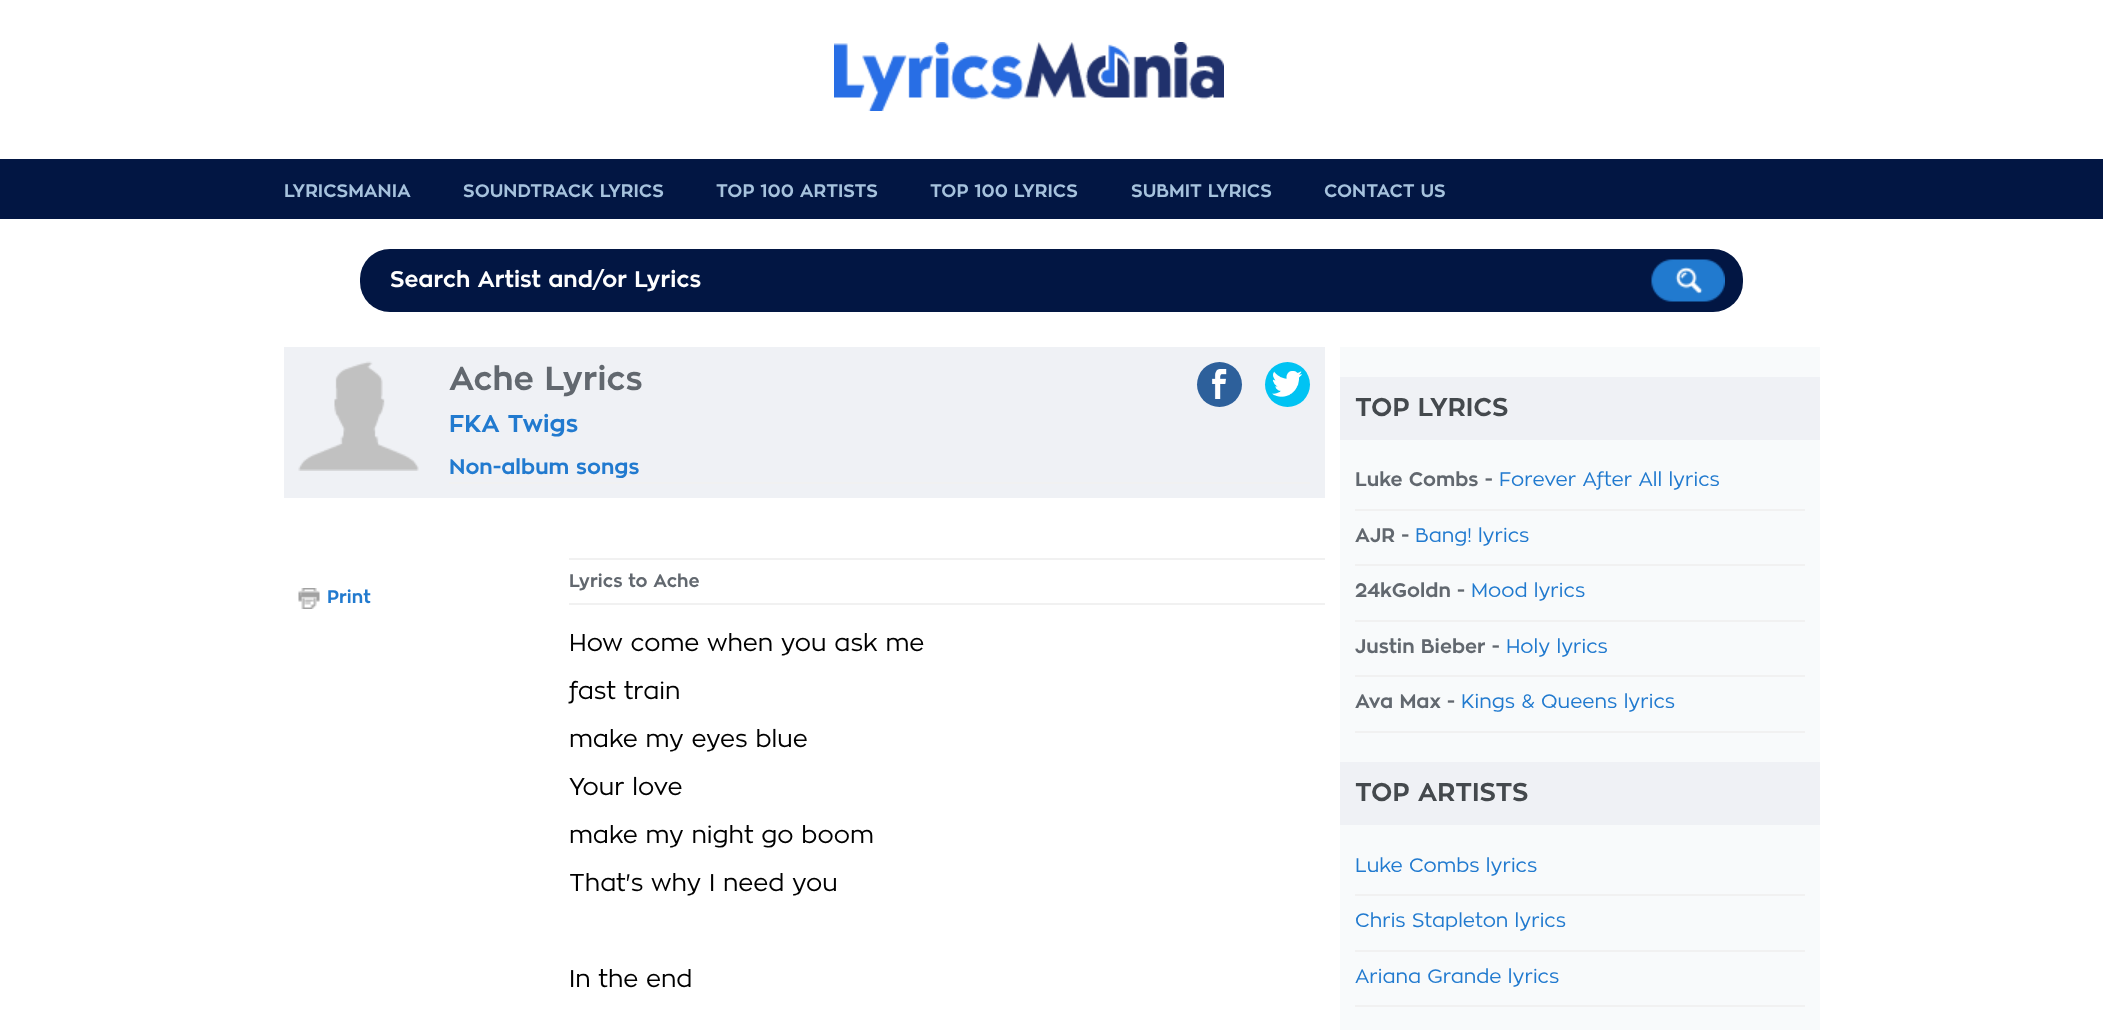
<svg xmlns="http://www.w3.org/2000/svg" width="2103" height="1030">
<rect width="100%" height="100%" fill="#fff"/>
<image x="834" y="42" width="390" height="69" href="media/1.png"/>
<rect y="159" width="2103" height="60" fill="#021643"/>
<text x="284" y="197" style="font-family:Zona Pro;font-size:18px;font-weight:bold;fill:#a6c2dd">LYRICSMANIA</text>
<text x="463" y="197" style="font-family:Zona Pro;font-size:18px;font-weight:bold;fill:#a6c2dd">SOUNDTRACK LYRICS</text>
<text x="716" y="197" style="font-family:Zona Pro;font-size:18px;font-weight:bold;fill:#a6c2dd">TOP 100 ARTISTS</text>
<text x="930" y="197" style="font-family:Zona Pro;font-size:18px;font-weight:bold;fill:#a6c2dd">TOP 100 LYRICS</text>
<text x="1131" y="197" style="font-family:Zona Pro;font-size:18px;font-weight:bold;fill:#a6c2dd">SUBMIT LYRICS</text>
<text x="1324" y="197" style="font-family:Zona Pro;font-size:18px;font-weight:bold;fill:#a6c2dd">CONTACT US</text>
<rect x="360" y="249" width="1383" height="63" rx="30" fill="#021643"/>
<text x="390" y="287" style="font-family:Zona Pro;font-size:22.5px;font-weight:bold;fill:#fefefe">Search Artist and/or Lyrics</text>
<image x="1651" y="259" width="74" height="43" href="media/2.png"/>
<rect x="284" y="347" width="1041" height="151" fill="#eff1f5"/>
<image x="298" y="361" width="121" height="110" href="media/3.png"/>
<rect x="449" y="482" width="861" height="2" fill="#f1f1f1"/>
<text x="449" y="390" style="font-family:Zona Pro;font-size:33px;font-weight:bold;fill:#62686f">Ache Lyrics</text>
<text x="449" y="432" style="font-family:Zona Pro;font-size:24px;font-weight:bold;fill:#217acf">FKA Twigs</text>
<text x="449" y="474" style="font-family:Zona Pro;font-size:21px;font-weight:bold;fill:#217acf">Non-album songs</text>
<circle cx="1219.5" cy="384.5" r="22.5" fill="#2d609b"/>
<image x="1211" y="369" width="16" height="30" href="media/4.png"/>
<circle cx="1287.5" cy="384.5" r="22.5" fill="#00c3f3"/>
<image x="1272" y="371" width="30" height="26" href="media/5.png"/>
<image x="298" y="588" width="22" height="21" href="media/6.png"/>
<text x="327" y="603" style="font-family:Zona Pro;font-size:18px;font-weight:bold;fill:#217acf">Print</text>
<rect x="569" y="558" width="756" height="2" fill="#f1f1f1"/>
<rect x="569" y="603" width="756" height="2" fill="#f1f1f1"/>
<text x="569" y="587" style="font-family:Zona Pro;font-size:18px;font-weight:bold;fill:#62686f">Lyrics to Ache</text>
<text x="569" y="651" style="font-family:Zona Pro;font-size:24px;fill:#000">How come when you ask me</text>
<text x="569" y="699" style="font-family:Zona Pro;font-size:24px;fill:#000">fast train</text>
<text x="569" y="747" style="font-family:Zona Pro;font-size:24px;fill:#000">make my eyes blue</text>
<text x="569" y="795" style="font-family:Zona Pro;font-size:24px;fill:#000">Your love</text>
<text x="569" y="843" style="font-family:Zona Pro;font-size:24px;fill:#000">make my night go boom</text>
<text x="569" y="891" style="font-family:Zona Pro;font-size:24px;fill:#000">That's why I need you</text>
<text x="569" y="987" style="font-family:Zona Pro;font-size:24px;fill:#000">In the end</text>
<rect x="1340" y="347" width="480" height="683" fill="#f8fafb"/>
<rect x="1340" y="377" width="480" height="63" fill="#eff1f5"/>
<text x="1355" y="416" style="font-family:Zona Pro;font-size:25.5px;font-weight:bold;fill:#44494d">TOP LYRICS</text>
<rect x="1355" y="509" width="450" height="2" fill="#f1f1f1"/>
<text x="1355" y="486" style="font-family:Zona Pro;font-size:19.5px;font-weight:bold;fill:#62686f">Luke Combs -</text>
<text x="1499" y="486" style="font-family:Zona Pro;font-size:19.5px;fill:#217acf">Forever After All lyrics</text>
<rect x="1355" y="564" width="450" height="2" fill="#f1f1f1"/>
<text x="1355" y="542" style="font-family:Zona Pro;font-size:19.5px;font-weight:bold;fill:#62686f">AJR -</text>
<text x="1415" y="542" style="font-family:Zona Pro;font-size:19.5px;fill:#217acf">Bang! lyrics</text>
<rect x="1355" y="620" width="450" height="2" fill="#f1f1f1"/>
<text x="1355" y="597" style="font-family:Zona Pro;font-size:19.5px;font-weight:bold;fill:#62686f">24kGoldn -</text>
<text x="1471" y="597" style="font-family:Zona Pro;font-size:19.5px;fill:#217acf">Mood lyrics</text>
<rect x="1355" y="675" width="450" height="2" fill="#f1f1f1"/>
<text x="1355" y="653" style="font-family:Zona Pro;font-size:19.5px;font-weight:bold;fill:#62686f">Justin Bieber -</text>
<text x="1506" y="653" style="font-family:Zona Pro;font-size:19.5px;fill:#217acf">Holy lyrics</text>
<rect x="1355" y="731" width="450" height="2" fill="#f1f1f1"/>
<text x="1355" y="708" style="font-family:Zona Pro;font-size:19.5px;font-weight:bold;fill:#62686f">Ava Max -</text>
<text x="1461" y="708" style="font-family:Zona Pro;font-size:19.5px;fill:#217acf">Kings &amp; Queens lyrics</text>
<rect x="1340" y="762" width="480" height="63" fill="#eff1f5"/>
<text x="1355" y="801" style="font-family:Zona Pro;font-size:25.5px;font-weight:bold;fill:#44494d">TOP ARTISTS</text>
<rect x="1355" y="894" width="450" height="2" fill="#f1f1f1"/>
<text x="1355" y="872" style="font-family:Zona Pro;font-size:19.5px;fill:#217acf">Luke Combs lyrics</text>
<rect x="1355" y="950" width="450" height="2" fill="#f1f1f1"/>
<text x="1355" y="927" style="font-family:Zona Pro;font-size:19.5px;fill:#217acf">Chris Stapleton lyrics</text>
<rect x="1355" y="1005" width="450" height="2" fill="#f1f1f1"/>
<text x="1355" y="983" style="font-family:Zona Pro;font-size:19.5px;fill:#217acf">Ariana Grande lyrics</text>
</svg>
